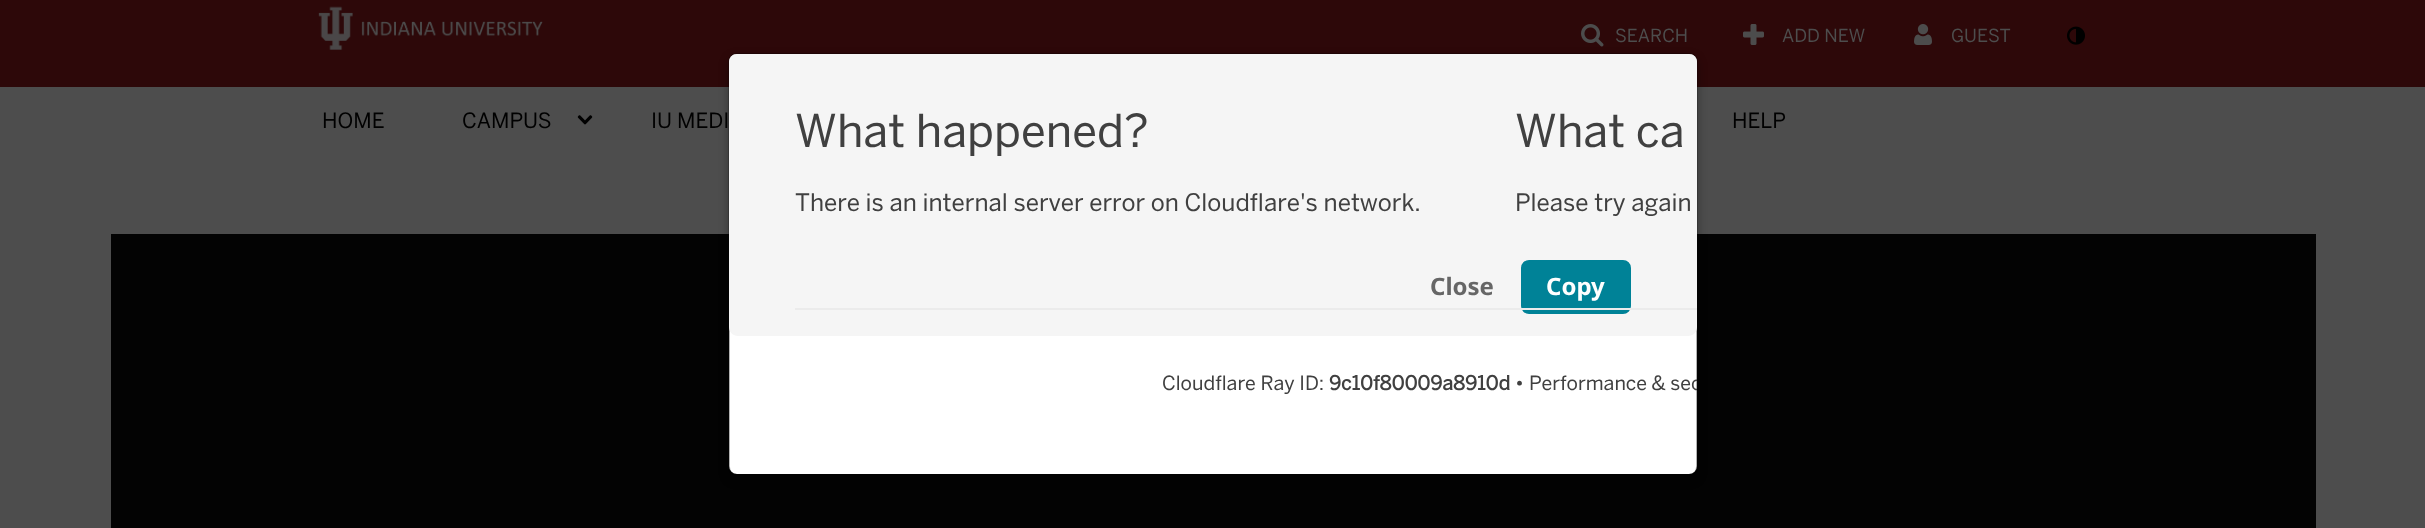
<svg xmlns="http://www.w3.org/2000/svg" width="2425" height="528">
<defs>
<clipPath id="clip1"><path d="M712 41h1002v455h-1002zm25 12h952c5 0 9 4 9 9v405c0 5-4 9-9 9h-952c-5 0-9-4-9-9v-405c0-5 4-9 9-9z" clip-rule="evenodd"/></clipPath>
<clipPath id="clip2"><rect x="729" y="54" width="968" height="420" rx="8"/></clipPath>
</defs>
<rect width="100%" height="100%" fill="#4d4d4d"/>
<rect width="2425" height="87" fill="#2d0809"/>
<image x="318" y="6" width="225" height="44" href="media/1.png"/>
<image x="1581" y="24" width="23" height="23" href="media/2.png"/>
<text x="1615" y="42" style="font-family:'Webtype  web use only';font-size:18px;fill:#4d4d4d">SEARCH</text>
<image x="1743" y="24" width="21" height="21" href="media/3.png"/>
<text x="1782" y="42" style="font-family:'Webtype  web use only';font-size:18px;fill:#4d4d4d">ADD NEW</text>
<image x="1914" y="24" width="18" height="21" href="media/4.png"/>
<text x="1951" y="42" style="font-family:'Webtype  web use only';font-size:18px;fill:#4d4d4d">GUEST</text>
<image x="2067" y="26" width="18" height="19" href="media/5.png"/>
<text x="322" y="128" style="font-family:'Webtype  web use only';font-size:21px;fill:#000">HOME</text>
<text x="462" y="128" style="font-family:'Webtype  web use only';font-size:21px;fill:#000">CAMPUS</text>
<image x="577" y="115" width="16" height="10" href="media/6.png"/>
<text x="651" y="128" style="font-family:'Webtype  web use only';font-size:21px;fill:#000">IU MEDI</text>
<text x="1732" y="128" style="font-family:'Webtype  web use only';font-size:21px;fill:#000">HELP</text>
<rect x="111" y="234" width="2205" height="294" fill="#030303"/>
<g clip-path="url(#clip1)">
<rect x="728" y="57" width="970" height="423" rx="9" fill="#0000004d" filter="blur(5px)"/>
</g>
<rect x="729" y="54" width="968" height="420" rx="8" fill="#fff"/>
<rect x="729" y="54" width="968" height="421" rx="8" fill="none" stroke="#0000004d" stroke-width="2"/>
<path d="M737 54h952c4.5 0 8 3.5 8 8v265c0 5-4 9-9 9h-950c-5 0-9-4-9-9v-265c0-4.5 3.5-8 8-8z" fill="#f5f5f5"/>
<text x="795" y="147" style="font-family:'Webtype  web use only';font-size:45px;fill:#404040">What happened?</text>
<text x="795" y="211" style="font-family:'Webtype  web use only';font-size:24px;fill:#404040">There is an internal server error on Cloudflare's network.</text>
<text x="1515" y="147" style="font-family:'Webtype  web use only';font-size:45px;fill:#404040">What ca</text>
<text x="1515" y="211" style="font-family:'Webtype  web use only';font-size:24px;fill:#404040">Please try again</text>
<rect x="1522" y="261" width="108" height="52" rx="7" fill="#008297" stroke="#008297" stroke-width="2"/>
<rect x="795" y="308" width="902" height="2" fill="#ebebeb"/>
<text x="1162" y="390" style="font-family:'Webtype  web use only';font-size:19.5px;fill:#404040">Cloudflare Ray ID:</text>
<text x="1329" y="390" style="font-family:'Webtype  web use only';font-size:19.5px;font-weight:bold;fill:#404040">9c10f80009a8910d</text>
<text x="1515" y="390" style="font-family:'Webtype  web use only';font-size:19.5px;fill:#404040">•</text>
<g clip-path="url(#clip2)">
<text x="1529" y="390" style="font-family:'Webtype  web use only';font-size:19.5px;fill:#404040">Performance &amp; sec</text>
</g>
<text x="1430" y="295" style="font-family:Noto Sans;font-size:24px;font-weight:bold;fill:#666">Close</text>
<text x="1546" y="295" style="font-family:Noto Sans;font-size:24px;font-weight:bold;fill:#fff">Copy</text>
</svg>
